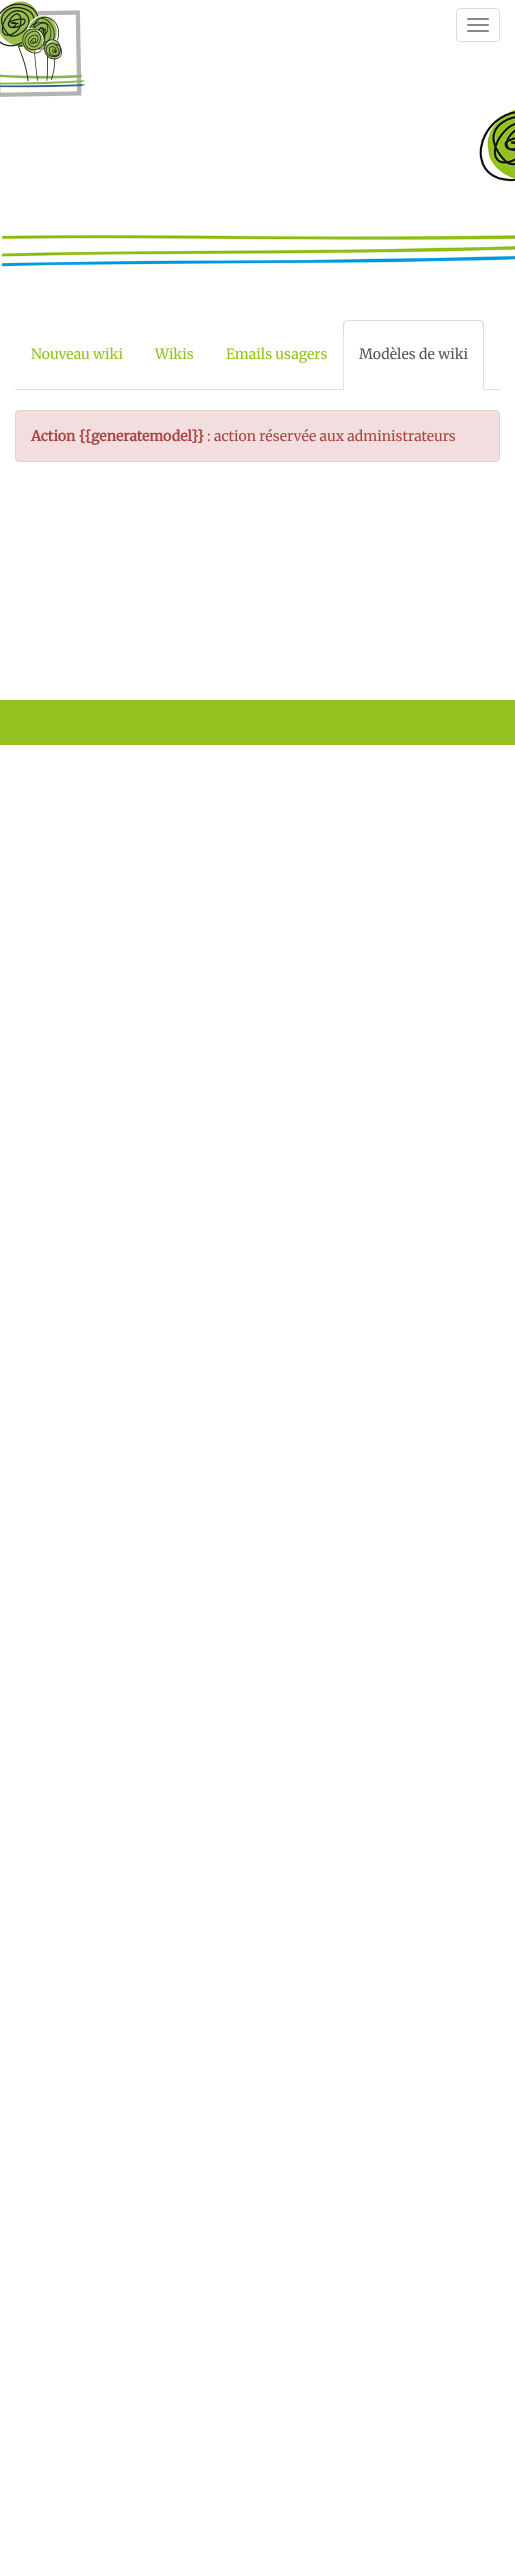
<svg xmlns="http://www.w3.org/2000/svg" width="515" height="2567">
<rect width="100%" height="100%" fill="#fff"/>
<image x="0" y="1" width="86" height="96" href="media/1.png"/>
<rect x="456.5" y="8.5" width="43" height="33" rx="3.5" fill="none" stroke="#ddd"/>
<rect x="467" y="18" width="22" height="2" rx="1" fill="#888"/>
<rect x="467" y="24" width="22" height="2" rx="1" fill="#888"/>
<rect x="467" y="30" width="22" height="2" rx="1" fill="#888"/>
<image x="0" y="100" width="515" height="170" href="media/2.png"/>
<rect x="15" y="389" width="485" height="1" fill="#ddd"/>
<text x="31" y="359" style="font-family:Merriweather;font-size:14px;font-weight:300;fill:#93c11f">Nouveau wiki</text>
<text x="155" y="359" style="font-family:Merriweather;font-size:14px;font-weight:300;fill:#93c11f">Wikis</text>
<text x="226" y="359" style="font-family:Merriweather;font-size:14px;font-weight:300;fill:#93c11f">Emails usagers</text>
<path d="M347 320h133c2 0 4 2 4 4v66h-141v-66c0-2 2-4 4-4z" fill="#fff"/>
<path d="M347 320l-3 1l1 1l2-1h133l2 1l1-1l-3-1z" fill="#ddd"/>
<path d="M484 390v-66l-1-3l-1 1c2 1 1 60 1 67z" fill="#ddd"/>
<path d="M343 390l1-1c0-7-1-66 1-67l-1-1l-1 3z" fill="#ddd"/>
<text x="359" y="359" style="font-family:Merriweather;font-size:14px;font-weight:300;fill:#555">Modèles de wiki</text>
<rect x="15.5" y="410.5" width="484" height="51" rx="3.5" fill="#f2dede" stroke="#ebccd1"/>
<text x="31" y="441" style="font-family:Merriweather;font-size:14px;font-weight:bold;fill:#a94442">Action {{generatemodel}}</text>
<text x="207" y="441" style="font-family:Merriweather;font-size:14px;font-weight:300;fill:#a94442">: action réservée aux administrateurs</text>
<rect y="700" width="515" height="45" fill="#93c11f"/>
</svg>
